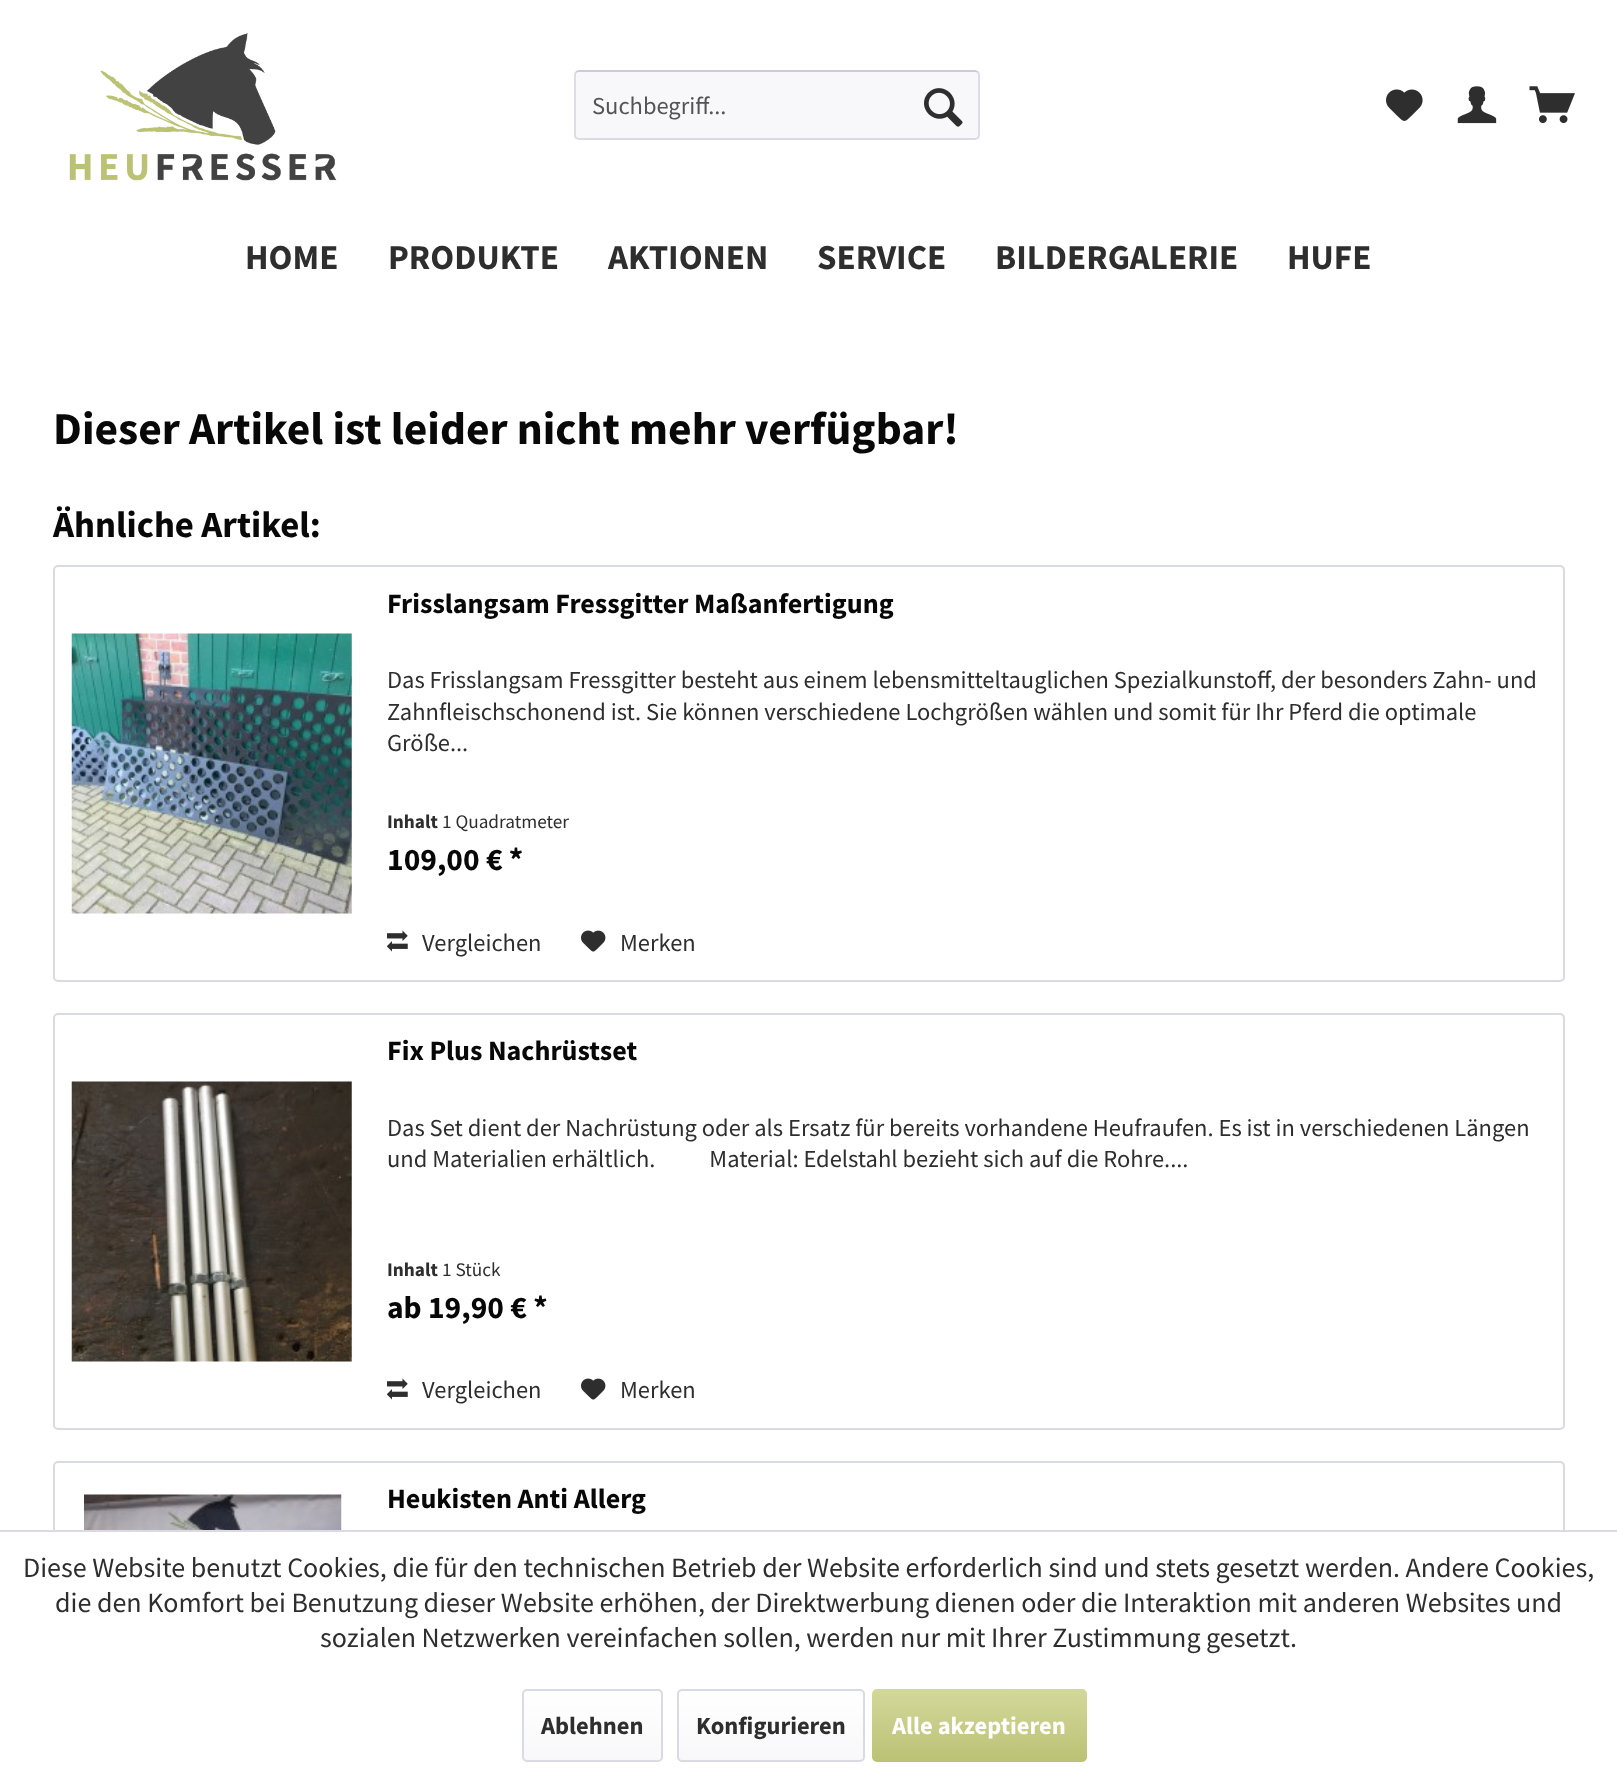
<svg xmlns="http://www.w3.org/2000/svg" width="1617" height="1779">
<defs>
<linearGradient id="g1" gradientUnits="userSpaceOnUse" x1="592" y1="1691" x2="592" y2="1761"><stop offset="0" stop-color="#fff"/><stop offset="1" stop-color="#f8f8fa"/></linearGradient>
<linearGradient id="g2" gradientUnits="userSpaceOnUse" x1="771" y1="1691" x2="771" y2="1761"><stop offset="0" stop-color="#fff"/><stop offset="1" stop-color="#f8f8fa"/></linearGradient>
<linearGradient id="g3" gradientUnits="userSpaceOnUse" x1="979" y1="1689" x2="979" y2="1762"><stop offset="0" stop-color="#d3d89b"/><stop offset="1" stop-color="#bbc274"/></linearGradient>
</defs>
<rect width="100%" height="100%" fill="#fff"/>
<image x="69" y="33" width="268" height="148" href="media/1.png"/>
<rect x="574" y="70" width="406" height="70" rx="5" fill="#f8f8fa"/>
<path d="M576 72l3-1h396l3 1" fill="none" stroke="#cbcbdb" stroke-width="1.8"/>
<path d="M978 72c.5 1 1 2 1 3v60c0 1-.5 2-1 3c-1 .5-2 1-3 1h-396c-1 0-2-.5-3-1c-.5-1-1-2-1-3v-60c0-1 .5-2 1-3" fill="none" stroke="#dadae5" stroke-width="1.8"/>
<text x="592" y="114" style="font-family:Source Sans Pro;font-size:24.5px;fill:#545456">Suchbegriff...</text>
<image x="924" y="88" width="39" height="39" href="media/2.png"/>
<image x="1386" y="89" width="37" height="32" href="media/3.png"/>
<image x="1457" y="86" width="40" height="38" href="media/4.png"/>
<image x="1529" y="86" width="46" height="37" href="media/5.png"/>
<text x="245" y="269" style="font-family:Source Sans Pro;font-size:35px;font-weight:bold;fill:#2e2e2f">HOME</text>
<text x="388" y="269" style="font-family:Source Sans Pro;font-size:35px;font-weight:bold;fill:#2e2e2f">PRODUKTE</text>
<text x="608" y="269" style="font-family:Source Sans Pro;font-size:35px;font-weight:bold;fill:#2e2e2f">AKTIONEN</text>
<text x="817" y="269" style="font-family:Source Sans Pro;font-size:35px;font-weight:bold;fill:#2e2e2f">SERVICE</text>
<text x="995" y="269" style="font-family:Source Sans Pro;font-size:35px;font-weight:bold;fill:#2e2e2f">BILDERGALERIE</text>
<text x="1287" y="269" style="font-family:Source Sans Pro;font-size:35px;font-weight:bold;fill:#2e2e2f">HUFE</text>
<text x="53" y="444" style="font-family:Source Sans Pro;font-size:45.5px;font-weight:bold;fill:#080808">Dieser Artikel ist leider nicht mehr verfügbar!</text>
<text x="53" y="537" style="font-family:Source Sans Pro;font-size:36.75px;font-weight:bold;fill:#080808">Ähnliche Artikel:</text>
<rect x="54" y="566" width="1510" height="415" rx="4" fill="none" stroke="#dadae5" stroke-width="2"/>
<text x="387" y="613" style="font-family:Source Sans Pro;font-size:28px;font-weight:bold;fill:#080808">Frisslangsam Fressgitter Maßanfertigung</text>
<image x="71" y="633" width="281" height="281" href="media/6.png"/>
<text x="387" y="688" style="font-family:Source Sans Pro;font-size:24.5px;fill:#2e2e2f">Das Frisslangsam Fressgitter besteht aus einem lebensmitteltauglichen Spezialkunstoff, der besonders Zahn- und</text>
<text x="387" y="720" style="font-family:Source Sans Pro;font-size:24.5px;fill:#2e2e2f">Zahnfleischschonend ist. Sie können verschiedene Lochgrößen wählen und somit für Ihr Pferd die optimale</text>
<text x="387" y="751" style="font-family:Source Sans Pro;font-size:24.5px;fill:#2e2e2f">Größe...</text>
<text x="387" y="828" style="font-family:Source Sans Pro;font-size:19.25px;font-weight:bold;fill:#2e2e2f">Inhalt</text>
<text x="442" y="828" style="font-family:Source Sans Pro;font-size:19.25px;fill:#2e2e2f">1 Quadratmeter</text>
<text x="387" y="870" style="font-family:Source Sans Pro;font-size:31.5px;font-weight:bold;fill:#080808">109,00 € *</text>
<image x="387" y="930" width="21" height="22" href="media/7.png"/>
<text x="422" y="951" style="font-family:Source Sans Pro;font-size:24.5px;fill:#2e2e2f">Vergleichen</text>
<image x="581" y="930" width="25" height="22" href="media/8.png"/>
<text x="620" y="951" style="font-family:Source Sans Pro;font-size:24.5px;fill:#2e2e2f">Merken</text>
<rect x="54" y="1014" width="1510" height="415" rx="4" fill="none" stroke="#dadae5" stroke-width="2"/>
<text x="387" y="1060" style="font-family:Source Sans Pro;font-size:28px;font-weight:bold;fill:#080808">Fix Plus Nachrüstset</text>
<image x="71" y="1081" width="281" height="281" href="media/9.png"/>
<text x="387" y="1136" style="font-family:Source Sans Pro;font-size:24.5px;fill:#2e2e2f">Das Set dient der Nachrüstung oder als Ersatz für bereits vorhandene Heufraufen. Es ist in verschiedenen Längen</text>
<text x="387" y="1167" style="font-family:Source Sans Pro;font-size:24.5px;fill:#2e2e2f" xml:space="preserve">und Materialien erhältlich.           Material: Edelstahl bezieht sich auf die Rohre....</text>
<text x="387" y="1276" style="font-family:Source Sans Pro;font-size:19.25px;font-weight:bold;fill:#2e2e2f">Inhalt</text>
<text x="442" y="1276" style="font-family:Source Sans Pro;font-size:19.25px;fill:#2e2e2f">1 Stück</text>
<text x="387" y="1318" style="font-family:Source Sans Pro;font-size:31.5px;font-weight:bold;fill:#080808">ab 19,90 € *</text>
<image x="387" y="1378" width="21" height="22" href="media/7.png"/>
<text x="422" y="1398" style="font-family:Source Sans Pro;font-size:24.5px;fill:#2e2e2f">Vergleichen</text>
<image x="581" y="1378" width="25" height="22" href="media/8.png"/>
<text x="620" y="1398" style="font-family:Source Sans Pro;font-size:24.5px;fill:#2e2e2f">Merken</text>
<rect x="54" y="1462" width="1510" height="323" rx="4" fill="none" stroke="#dadae5" stroke-width="2"/>
<image x="84" y="1494" width="258" height="36" href="media/10.png"/>
<text x="387" y="1508" style="font-family:Source Sans Pro;font-size:28px;font-weight:bold;fill:#080808">Heukisten Anti Allerg</text>
<rect x="53" y="1532" width="1512" height="247" fill="#fff"/>
<rect y="1530" width="1617" height="2" fill="#dadae5"/>
<text x="23" y="1577" style="font-family:Source Sans Pro;font-size:28px;fill:#2e2e2f">Diese Website benutzt Cookies, die für den technischen Betrieb der Website erforderlich sind und stets gesetzt werden. Andere Cookies,</text>
<text x="55" y="1612" style="font-family:Source Sans Pro;font-size:28px;fill:#2e2e2f">die den Komfort bei Benutzung dieser Website erhöhen, der Direktwerbung dienen oder die Interaktion mit anderen Websites und</text>
<text x="320" y="1647" style="font-family:Source Sans Pro;font-size:28px;fill:#2e2e2f">sozialen Netzwerken vereinfachen sollen, werden nur mit Ihrer Zustimmung gesetzt.</text>
<rect x="523" y="1691" width="139" height="70" rx="4" fill="url(#g1)"/>
<rect x="523" y="1690" width="139" height="71" rx="4" fill="none" stroke="#dadae5" stroke-width="2"/>
<text x="541" y="1734" style="font-family:Source Sans Pro;font-size:24.5px;font-weight:bold;fill:#2e2e2f">Ablehnen</text>
<rect x="679" y="1691" width="184" height="70" rx="4" fill="url(#g2)"/>
<rect x="678" y="1690" width="186" height="71" rx="4" fill="none" stroke="#dadae5" stroke-width="2"/>
<text x="696" y="1734" style="font-family:Source Sans Pro;font-size:24.5px;font-weight:bold;fill:#2e2e2f">Konfigurieren</text>
<rect x="872" y="1689" width="215" height="73" rx="5" fill="url(#g3)"/>
<text x="892" y="1734" style="font-family:Source Sans Pro;font-size:24.5px;font-weight:bold;fill:#fff">Alle akzeptieren</text>
</svg>
